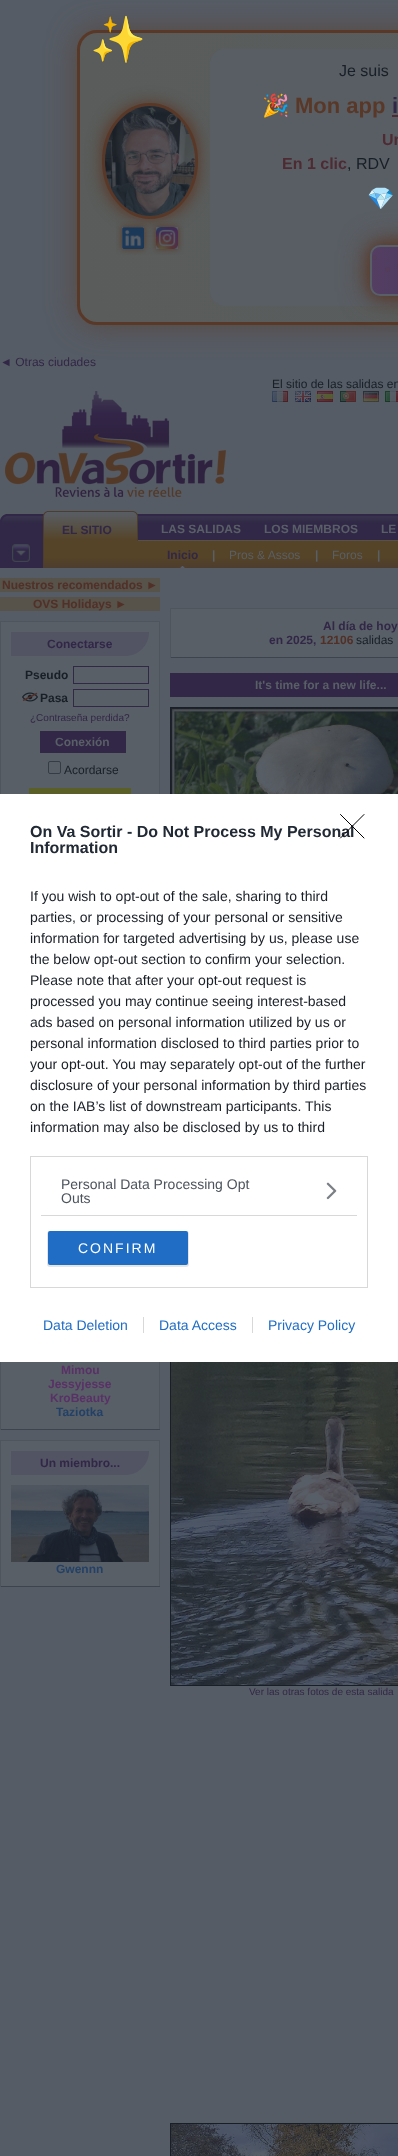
<svg xmlns="http://www.w3.org/2000/svg" width="398" height="2156">
<defs>
<clipPath id="clip1"><rect x="77" y="30" width="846" height="295" rx="20"/></clipPath>
<radialGradient id="g1" gradientUnits="userSpaceOnUse" cx="500" cy="178" r="444"><stop offset="0" stop-color="#595d5f"/><stop offset="1" stop-color="#595c5a"/></radialGradient>
<clipPath id="clip2"><rect x="370" y="245" width="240" height="51" rx="10"/></clipPath>
<linearGradient id="g2" gradientUnits="userSpaceOnUse" x1="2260" y1="435" x2="372" y2="435"><stop offset="0" stop-color="#591f27"/><stop offset="0.17" stop-color="#594827"/><stop offset="0.33" stop-color="#595f27"/><stop offset="0.5" stop-color="#193f27"/><stop offset="0.67" stop-color="#191f67"/><stop offset="0.83" stop-color="#2c1f48"/><stop offset="1" stop-color="#543f63"/></linearGradient>
</defs>
<rect width="100%" height="100%" fill="#565c65"/>
<rect x="77" y="30" width="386" height="295" rx="20" fill="#59382799" filter="blur(15px)"/>
<g clip-path="url(#clip1)">
<rect x="80" y="33" width="318" height="289" fill="url(#g1)"/>
</g>
<rect x="78.5" y="31.5" width="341" height="292" rx="18.5" fill="none" stroke="#593827" stroke-width="3"/>
<text x="90" y="55" style="font-family:Noto Color Emoji;font-size:45px;fill:#383b3f">✨</text>
<rect x="102" y="103" width="96" height="116" rx="48" fill="#593827" filter="blur(7.5px)"/>
<path d="M150 104.5c25.5 0 46.5 25.5 46.5 56.5c0 31-21 56.5-46.5 56.5c-25.5 0-46.5-25.5-46.5-56.5c0-31 21-56.5 46.5-56.5z" fill="none" stroke="#593827" stroke-width="3"/>
<image x="105" y="106" width="90" height="110" href="media/1.png"/>
<image x="116" y="221" width="34" height="34" href="media/2.png"/>
<image x="150" y="221" width="34" height="34" href="media/3.png"/>
<rect x="210" y="49" width="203" height="257" rx="15" fill="#595f67cc"/>
<text x="339" y="76" style="font-family:Liberation Sans;font-size:16px;fill:#191f27">Je suis</text>
<text x="262" y="113" style="font-family:Noto Color Emoji;font-size:22px;font-weight:bold;fill:#593827">🎉</text>
<text x="295" y="113" style="font-family:Liberation Sans;font-size:22px;font-weight:bold;fill:#593827">Mon app</text>
<text x="392" y="113" style="font-family:Liberation Sans;font-size:22px;font-weight:bold;fill:#322747">i</text>
<rect x="392" y="115" width="6" height="2" fill="#4e2b33"/>
<text x="382" y="145" style="font-family:Liberation Sans;font-size:16px;font-weight:bold;fill:#4e2b33">Un</text>
<text x="282" y="169" style="font-family:Liberation Sans;font-size:16px;font-weight:bold;fill:#4e2b33">En 1 clic</text>
<text x="347" y="169" style="font-family:Liberation Sans;font-size:16px;fill:#191f27">, RDV</text>
<text x="367" y="206" style="font-family:Noto Color Emoji;font-size:22px;font-weight:bold;fill:#593827">💎</text>
<rect x="370" y="245" width="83" height="51" rx="10" fill="#593827" filter="blur(15px)"/>
<rect x="370" y="245" width="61" height="51" rx="10" fill="#593827" filter="blur(7.5px)"/>
<g clip-path="url(#clip2)">
<path d="M372 245h26c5.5 0 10 4.5 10 10v31c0 5.5-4.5 10-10 10h-26z" fill="url(#g2)"/>
</g>
<rect x="371" y="246" width="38" height="49" rx="9" fill="none" stroke="#595f67" stroke-width="2"/>
<circle cx="374.5" cy="257.5" r="2.5" fill="#553e5b"/>
<rect x="397" y="264" width="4" height="5" rx="2.5" fill="#523c59"/>
<circle cx="387.5" cy="269.5" r="2.5" fill="#533d5a"/>
<text x="0" y="366" style="font-family:Liberation Sans;font-size:12px;fill:#322747">◄ Otras ciudades</text>
<image x="5" y="391" width="221" height="106" href="media/4.png"/>
<text x="272" y="388" style="font-family:Liberation Sans;font-size:12px;fill:#191f27">El sitio de las salidas en</text>
<image x="272" y="391" width="16" height="11" href="media/5.png"/>
<image x="295" y="391" width="16" height="11" href="media/6.png"/>
<image x="317" y="391" width="16" height="11" href="media/7.png"/>
<image x="340" y="391" width="16" height="11" href="media/8.png"/>
<image x="363" y="391" width="16" height="11" href="media/9.png"/>
<image x="385" y="391" width="13" height="11" href="media/10.png"/>
<rect y="523" width="398" height="45" fill="#312747"/>
<image x="0" y="511" width="398" height="12" href="media/11.png"/>
<image x="0" y="514" width="7" height="9" href="media/12.png"/>
<image x="43" y="540" width="355" height="28" href="media/16.png"/>
<image x="43" y="511" width="5" height="32" href="media/13.png"/>
<image x="47" y="511" width="91" height="30" href="media/14.png"/>
<text x="62" y="534" style="font-family:Liberation Sans;font-size:12px;font-weight:bold;fill:#322747">EL SITIO</text>
<text x="161" y="533" style="font-family:Liberation Sans;font-size:12px;font-weight:bold;fill:#595f67">LAS SALIDAS</text>
<text x="264" y="533" style="font-family:Liberation Sans;font-size:12px;font-weight:bold;fill:#595f67">LOS MIEMBROS</text>
<text x="381" y="533" style="font-family:Liberation Sans;font-size:12px;font-weight:bold;fill:#595f67">LE</text>
<image x="12" y="544" width="18" height="18" href="media/15.png"/>
<image x="43" y="543" width="3" height="24" href="media/17.png"/>
<image x="178" y="566" width="9" height="2" href="media/18.png"/>
<text x="167" y="559" style="font-family:Liberation Sans;font-size:12px;font-weight:bold;fill:#322747">Inicio</text>
<text x="212" y="559" style="font-family:Liberation Sans;font-size:12px;font-weight:bold;fill:#595f67">|</text>
<text x="229" y="559" style="font-family:Liberation Sans;font-size:12px;fill:#595f67">Pros &amp; Assos</text>
<text x="315" y="559" style="font-family:Liberation Sans;font-size:12px;font-weight:bold;fill:#595f67">|</text>
<text x="332" y="559" style="font-family:Liberation Sans;font-size:12px;fill:#595f67">Foros</text>
<text x="377" y="559" style="font-family:Liberation Sans;font-size:12px;font-weight:bold;fill:#595f67">|</text>
<rect y="578" width="160" height="14" fill="#57524a"/>
<text x="2" y="589" style="font-family:Liberation Sans;font-size:12px;font-weight:bold;fill:#513027">Nuestros recomendados ►</text>
<rect y="597" width="160" height="14" fill="#57524a"/>
<text x="33" y="608" style="font-family:Liberation Sans;font-size:12px;font-weight:bold;fill:#513027">OVS Holidays ►</text>
<rect x="1" y="622" width="158" height="172" fill="#595f67"/>
<rect y="621" width="160" height="1" fill="#4f555d"/>
<rect x="159" y="621" width="1" height="173" fill="#4f555d"/>
<rect y="621" width="1" height="173" fill="#4f555d"/>
<path d="M11 632h138c0 13.5-10.5 24-24 24h-114z" fill="#525464"/>
<text x="47" y="648" style="font-family:Liberation Sans;font-size:12px;font-weight:bold;fill:#322747">Conectarse</text>
<text x="25" y="679" style="font-family:Liberation Sans;font-size:12px;font-weight:bold;fill:#191f27">Pseudo</text>
<rect x="73.5" y="666.5" width="75" height="17" fill="none" stroke="#322747"/>
<image x="22" y="692" width="16" height="10" href="media/19.png"/>
<text x="40" y="702" style="font-family:Liberation Sans;font-size:12px;font-weight:bold;fill:#191f27">Pasa</text>
<rect x="73.5" y="689.5" width="75" height="17" fill="none" stroke="#322747"/>
<text x="30" y="721" style="font-family:Liberation Sans;font-size:10px;fill:#322747">¿Contraseña perdida?</text>
<rect x="40" y="731" width="86" height="22" fill="#322747"/>
<text x="55" y="746" style="font-family:Liberation Sans;font-size:12px;font-weight:bold;fill:#595f67">Conexión</text>
<rect x="48.5" y="761.5" width="12" height="12" rx="1.5" fill="none" stroke="#363c45"/>
<text x="64" y="774" style="font-family:Liberation Sans;font-size:12px;fill:#191f27">Acordarse</text>
<rect x="29" y="788" width="102" height="6" fill="#595f27"/>
<rect x="1" y="1362" width="158" height="67" fill="#595f67"/>
<rect x="159" y="1362" width="1" height="68" fill="#4f555d"/>
<rect y="1429" width="160" height="1" fill="#3e444d"/>
<rect y="1362" width="1" height="68" fill="#4f555d"/>
<text x="61" y="1374" style="font-family:Liberation Sans;font-size:12px;font-weight:bold;fill:#593167">Mimou</text>
<text x="48" y="1388" style="font-family:Liberation Sans;font-size:12px;font-weight:bold;fill:#593167">Jessyjesse</text>
<text x="50" y="1402" style="font-family:Liberation Sans;font-size:12px;font-weight:bold;fill:#593167">KroBeauty</text>
<text x="56" y="1416" style="font-family:Liberation Sans;font-size:12px;font-weight:bold;fill:#234167">Taziotka</text>
<rect x="1" y="1441" width="158" height="145" fill="#595f67"/>
<rect y="1440" width="160" height="1" fill="#4f555d"/>
<rect x="159" y="1440" width="1" height="147" fill="#4f555d"/>
<rect y="1586" width="160" height="1" fill="#3e444d"/>
<rect y="1440" width="1" height="147" fill="#4f555d"/>
<path d="M11 1451h138c0 13.5-10.5 24-24 24h-114z" fill="#525464"/>
<text x="40" y="1467" style="font-family:Liberation Sans;font-size:12px;font-weight:bold;fill:#322747">Un miembro...</text>
<image x="11" y="1485" width="138" height="77" href="media/20.png"/>
<text x="56" y="1573" style="font-family:Liberation Sans;font-size:12px;font-weight:bold;fill:#234167">Gwennn</text>
<rect x="171" y="609" width="227" height="48" fill="#595f67"/>
<rect x="170" y="608" width="228" height="1" fill="#4f555d"/>
<rect x="170" y="657" width="228" height="1" fill="#3e444d"/>
<rect x="170" y="608" width="1" height="50" fill="#4f555d"/>
<text x="323" y="630" style="font-family:Liberation Sans;font-size:12px;font-weight:bold;fill:#322747">Al día de hoy</text>
<text x="269" y="644" style="font-family:Liberation Sans;font-size:12px;font-weight:bold;fill:#322747">en 2025,</text>
<text x="320" y="644" style="font-family:Liberation Sans;font-size:12px;font-weight:bold;fill:#513027">12106</text>
<text x="356" y="644" style="font-family:Liberation Sans;font-size:12px;fill:#191f27">salidas</text>
<rect x="170" y="673" width="228" height="24" fill="#322747"/>
<text x="255" y="689" style="font-family:Liberation Sans;font-size:12px;font-weight:bold;fill:#595f67">It's time for a new life...</text>
<rect x="170.5" y="707.5" width="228" height="228" fill="none" stroke="#191f27"/>
<image x="171" y="708" width="227" height="86" href="media/21.png"/>
<rect x="170.5" y="1284.5" width="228" height="401" fill="none" stroke="#191f27"/>
<image x="171" y="1362" width="227" height="323" href="media/22.png"/>
<text x="249" y="1695" style="font-family:Liberation Sans;font-size:10px;fill:#322747">Ver las otras fotos de esta salida</text>
<rect x="170.5" y="2123.5" width="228" height="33" fill="none" stroke="#191f27"/>
<image x="171" y="2124" width="227" height="32" href="media/23.png"/>
<rect y="794" width="398" height="568" fill="#fff"/>
<text x="30" y="837" style="font-family:Liberation Sans;font-size:16px;font-weight:bold;fill:#212934">On Va Sortir - Do Not Process My Personal</text>
<path d="M340.5 814.5l23.5 23.5m0-23.5l-23.5 23.5" fill="none" stroke="#000" stroke-linecap="round" stroke-linejoin="round"/>
<text x="30" y="853" style="font-family:Liberation Sans;font-size:16px;font-weight:bold;fill:#212934">Information</text>
<text x="30" y="901" style="font-family:Liberation Sans;font-size:14px;fill:#191f27">If you wish to opt-out of the sale, sharing to third</text>
<text x="30" y="922" style="font-family:Liberation Sans;font-size:14px;fill:#191f27">parties, or processing of your personal or sensitive</text>
<text x="30" y="943" style="font-family:Liberation Sans;font-size:14px;fill:#191f27">information for targeted advertising by us, please use</text>
<text x="30" y="964" style="font-family:Liberation Sans;font-size:14px;fill:#191f27">the below opt-out section to confirm your selection.</text>
<text x="30" y="985" style="font-family:Liberation Sans;font-size:14px;fill:#191f27">Please note that after your opt-out request is</text>
<text x="30" y="1006" style="font-family:Liberation Sans;font-size:14px;fill:#191f27">processed you may continue seeing interest-based</text>
<text x="30" y="1027" style="font-family:Liberation Sans;font-size:14px;fill:#191f27">ads based on personal information utilized by us or</text>
<text x="30" y="1048" style="font-family:Liberation Sans;font-size:14px;fill:#191f27">personal information disclosed to third parties prior to</text>
<text x="30" y="1069" style="font-family:Liberation Sans;font-size:14px;fill:#191f27">your opt-out. You may separately opt-out of the further</text>
<text x="30" y="1090" style="font-family:Liberation Sans;font-size:14px;fill:#191f27">disclosure of your personal information by third parties</text>
<text x="30" y="1111" style="font-family:Liberation Sans;font-size:14px;fill:#191f27">on the IAB’s list of downstream participants. This</text>
<text x="30" y="1132" style="font-family:Liberation Sans;font-size:14px;fill:#191f27">information may also be disclosed by us to third</text>
<rect x="30.5" y="1156.5" width="337" height="131" fill="none" stroke="#d8d8d8"/>
<rect x="41" y="1215" width="316" height="1" fill="#d8d8d8"/>
<text x="61" y="1189" style="font-family:Liberation Sans;font-size:14px;fill:#4d545d">Personal Data Processing Opt</text>
<text x="61" y="1203" style="font-family:Liberation Sans;font-size:14px;fill:#4d545d">Outs</text>
<image x="326" y="1182" width="11" height="18" href="media/24.png"/>
<rect x="47" y="1231" width="142" height="36" rx="3" fill="#0000001a" filter="blur(0.5px)"/>
<rect x="48" y="1231" width="140" height="34" rx="2" fill="#206dc5"/>
<text x="78" y="1253" style="font-family:Liberation Sans;font-size:14px;letter-spacing:2px;fill:#fff">CONFIRM</text>
<text x="43" y="1330" style="font-family:Liberation Sans;font-size:14px;fill:#206dc5">Data Deletion</text>
<text x="159" y="1330" style="font-family:Liberation Sans;font-size:14px;fill:#206dc5">Data Access</text>
<rect x="143" y="1317" width="1" height="16" fill="#d8d8d8"/>
<text x="268" y="1330" style="font-family:Liberation Sans;font-size:14px;fill:#206dc5">Privacy Policy</text>
<rect x="252" y="1317" width="1" height="16" fill="#d8d8d8"/>
</svg>
